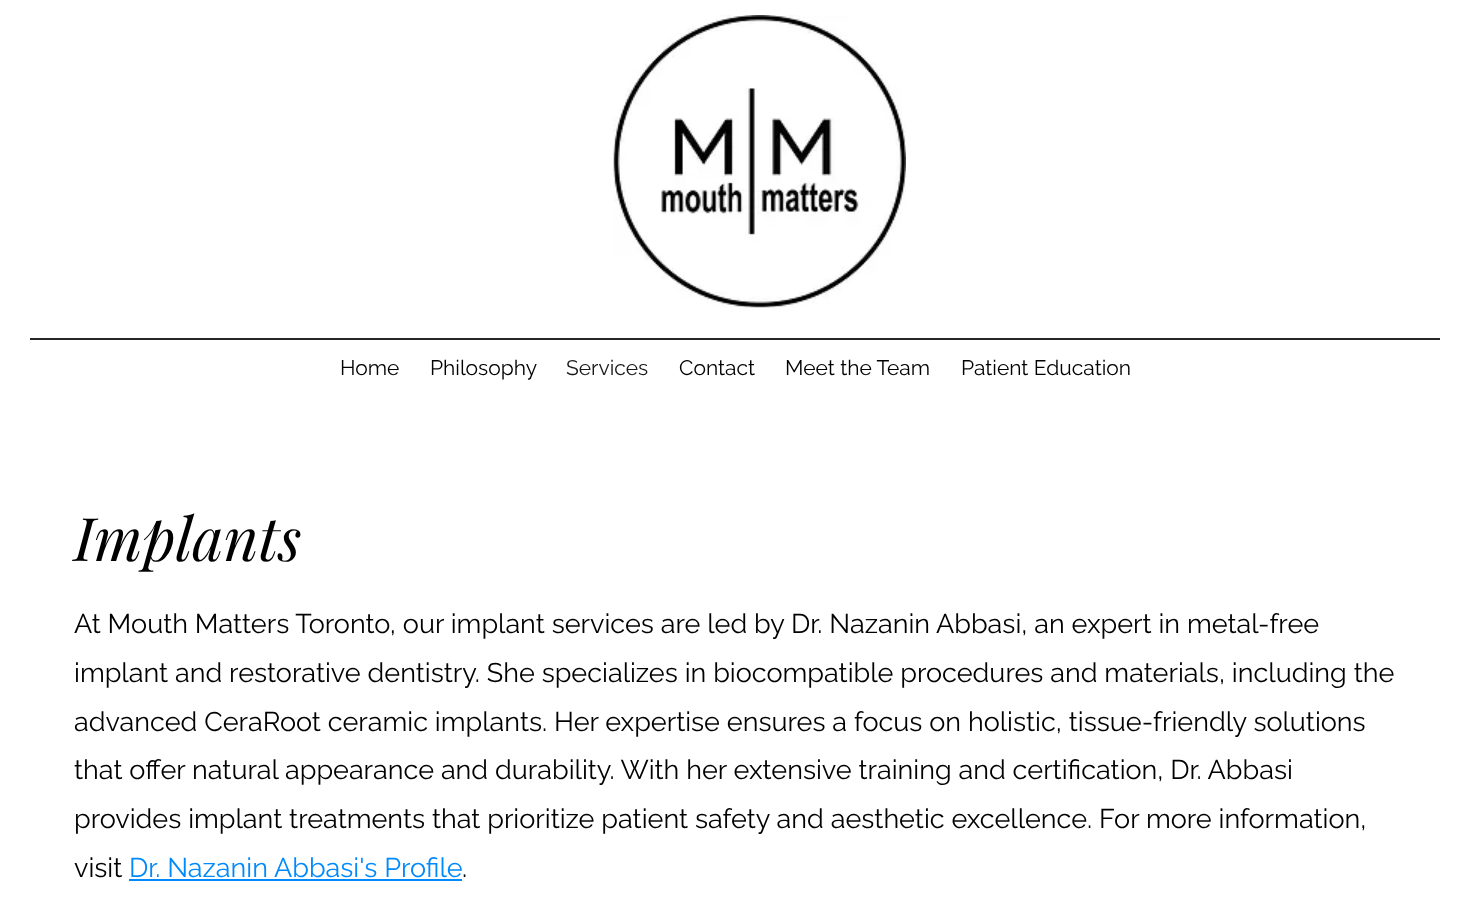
<svg xmlns="http://www.w3.org/2000/svg" width="1465" height="905">
<rect width="100%" height="100%" fill="#fff"/>
<image x="613" y="15" width="293" height="293" href="media/1.png"/>
<rect x="30" y="338" width="1410" height="2" fill="#262626"/>
<text x="340" y="375" style="font-family:Raleway;font-size:21px;fill:#000">Home</text>
<text x="430" y="375" style="font-family:Raleway;font-size:21px;fill:#000">Philosophy</text>
<text x="566" y="375" style="font-family:Raleway;font-size:21px;fill:#191919">Services</text>
<text x="679" y="375" style="font-family:Raleway;font-size:21px;fill:#000">Contact</text>
<text x="785" y="375" style="font-family:Raleway;font-size:21px;fill:#000">Meet the Team</text>
<text x="961" y="375" style="font-family:Raleway;font-size:21px;fill:#000">Patient Education</text>
<text x="74" y="561" style="font-family:Playfair Display;font-size:60px;font-style:italic;fill:#000">Implants</text>
<text x="74" y="633" style="font-family:Raleway;font-size:27px;fill:#000">At Mouth Matters Toronto, our implant services are led by Dr. Nazanin Abbasi, an expert in metal-free</text>
<text x="74" y="682" style="font-family:Raleway;font-size:27px;fill:#000">implant and restorative dentistry. She specializes in biocompatible procedures and materials, including the</text>
<text x="74" y="731" style="font-family:Raleway;font-size:27px;fill:#000">advanced CeraRoot ceramic implants. Her expertise ensures a focus on holistic, tissue-friendly solutions</text>
<text x="74" y="779" style="font-family:Raleway;font-size:27px;fill:#000">that offer natural appearance and durability. With her extensive training and certification, Dr. Abbasi</text>
<text x="74" y="828" style="font-family:Raleway;font-size:27px;fill:#000">provides implant treatments that prioritize patient safety and aesthetic excellence. For more information,</text>
<text x="74" y="877" style="font-family:Raleway;font-size:27px;fill:#000">visit</text>
<text x="129" y="877" style="font-family:Raleway;font-size:27px;fill:#008afc">Dr. Nazanin Abbasi's Profile</text>
<text x="462" y="877" style="font-family:Raleway;font-size:27px;fill:#000">.</text>
<rect x="129" y="879" width="333" height="2" fill="#008afc"/>
</svg>
